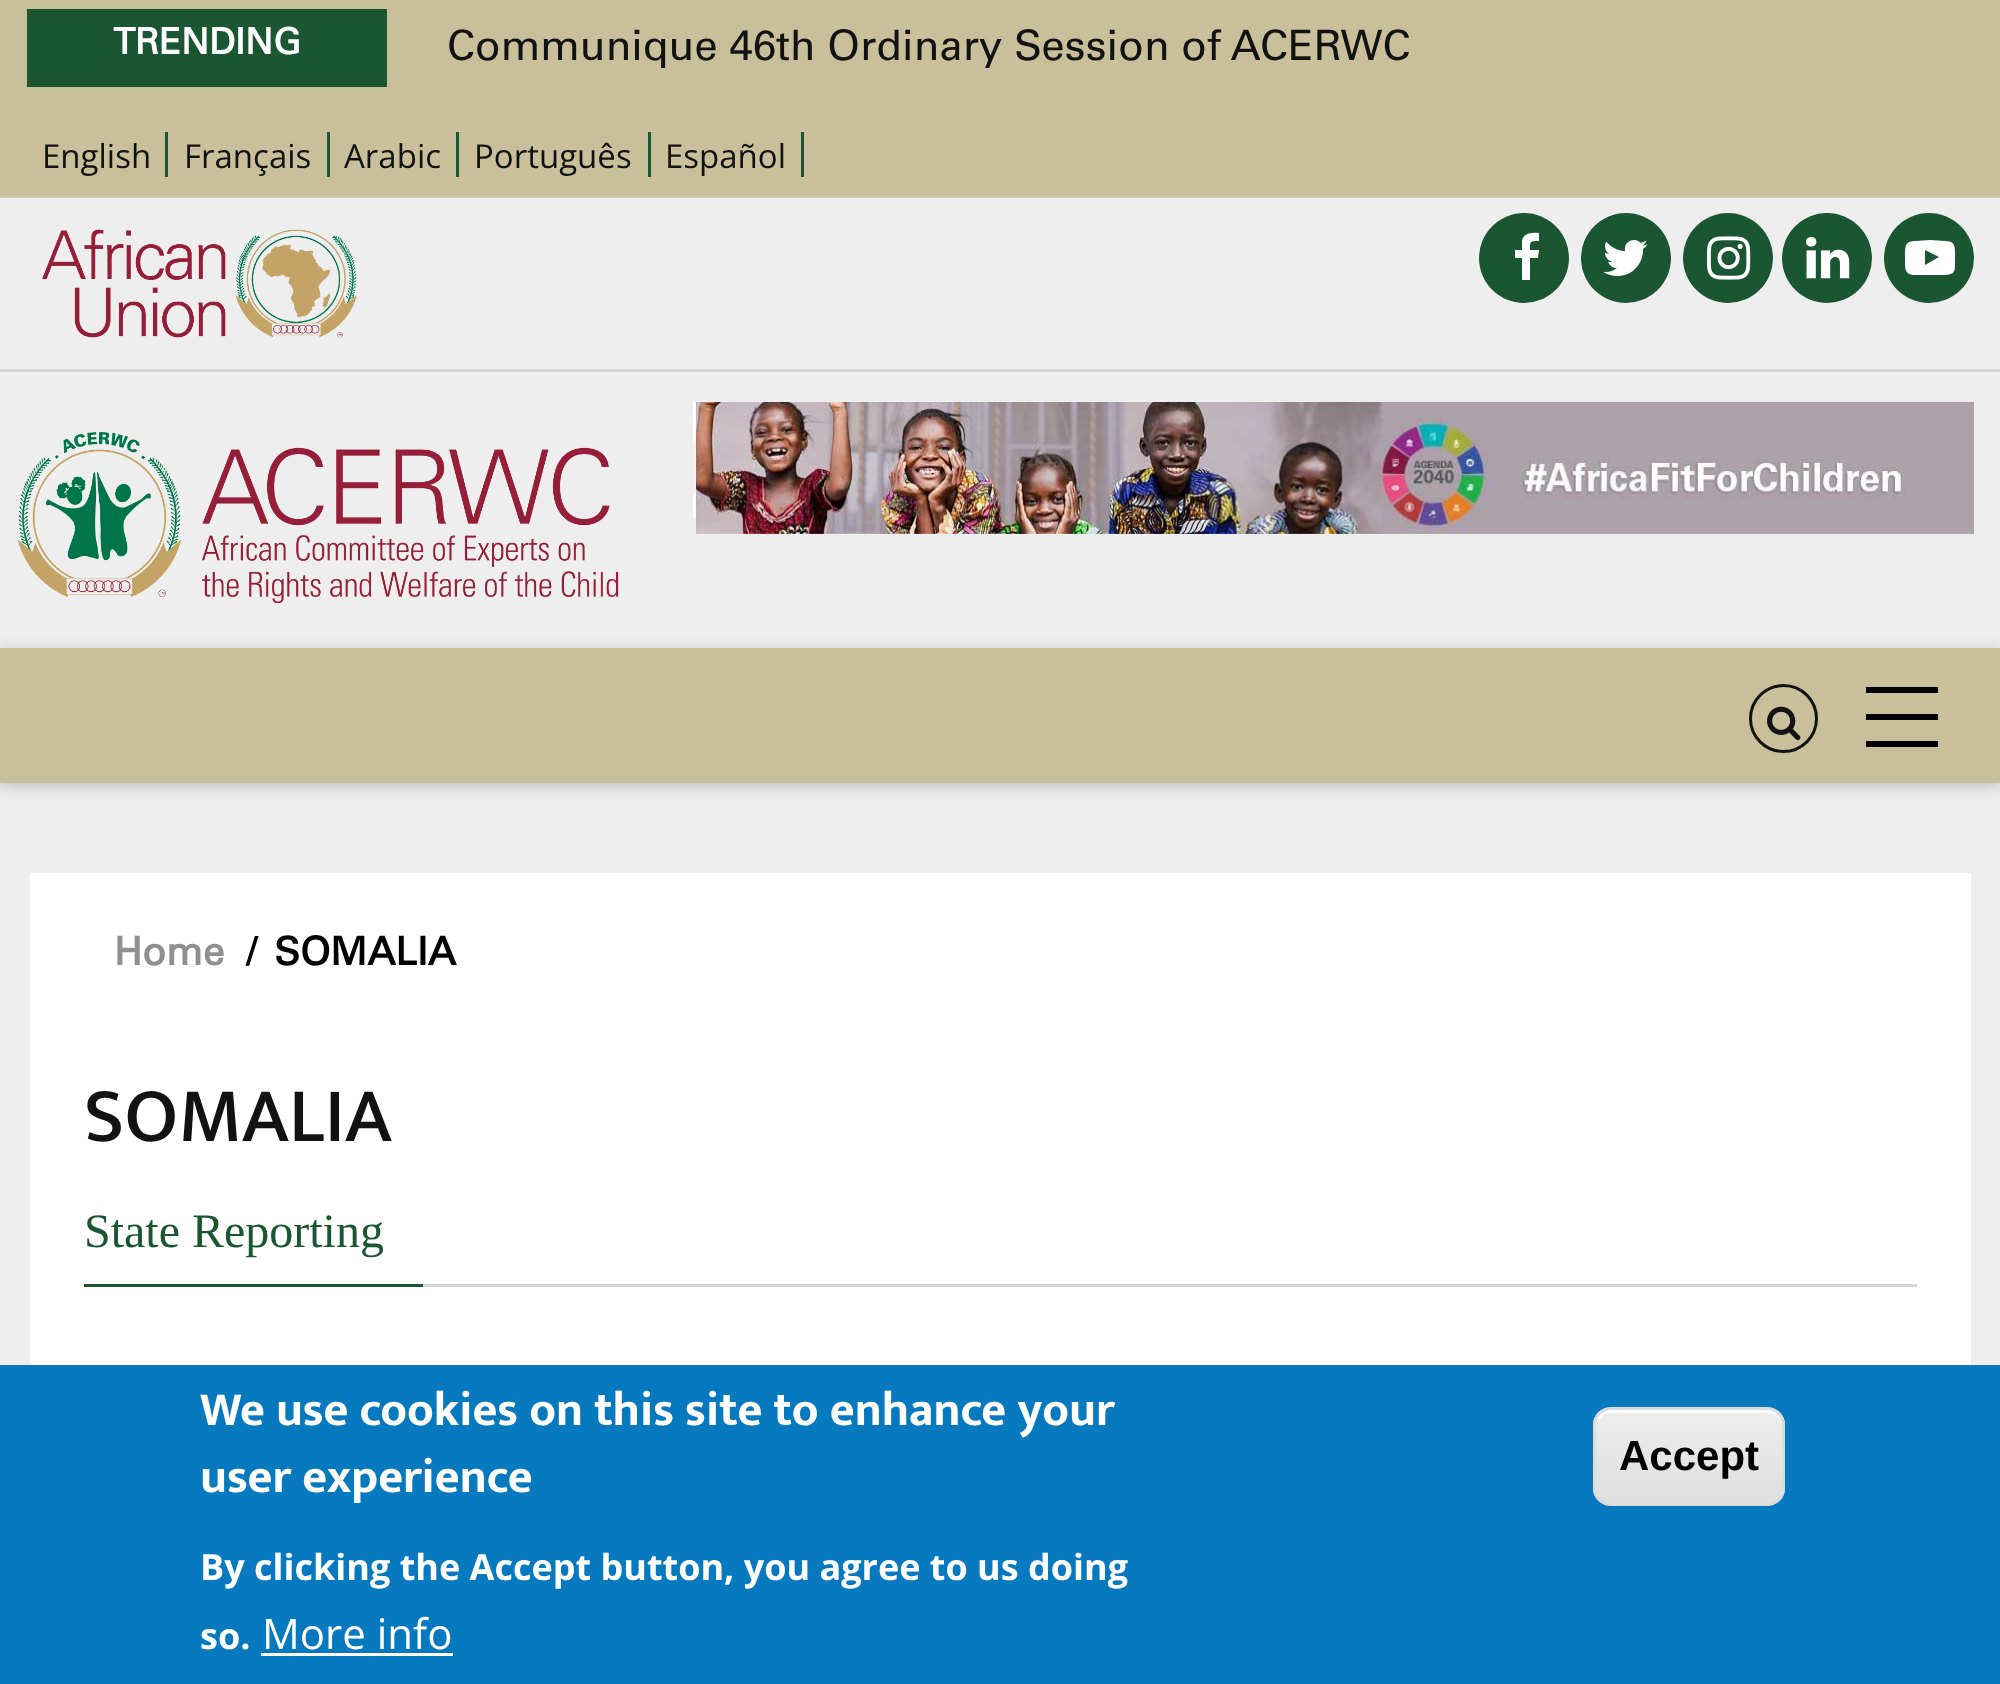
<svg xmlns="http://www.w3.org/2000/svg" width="2000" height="1684">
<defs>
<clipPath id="clip1"><rect x="1593" y="1407" width="192" height="99" rx="18"/></clipPath>
<linearGradient id="g1" gradientUnits="userSpaceOnUse" x1="1689" y1="1410" x2="1689" y2="1503"><stop offset="0.05" stop-color="#ededed"/><stop offset="1" stop-color="#dfdfdf"/></linearGradient>
</defs>
<rect width="100%" height="100%" fill="#eee"/>
<rect width="2000" height="195" fill="#c9c09b"/>
<rect y="195" width="2000" height="3" fill="#cec6a5"/>
<rect x="27" y="9" width="360" height="78" fill="#1a5632"/>
<text x="113" y="54" style="font-family:Univers;font-size:36px;font-weight:bold;fill:#fff">TRENDING</text>
<text x="447" y="60" style="font-family:Univers;font-size:42px;fill:#121212">Communique 46th Ordinary Session of ACERWC</text>
<text x="42" y="168" style="font-family:Open Sans;font-size:33px;fill:#121212">English</text>
<rect x="165" y="132" width="3" height="45" fill="#1a5632"/>
<text x="184" y="168" style="font-family:Open Sans;font-size:33px;fill:#121212">Français</text>
<rect x="327" y="132" width="3" height="45" fill="#1a5632"/>
<text x="344" y="168" style="font-family:Open Sans;font-size:33px;fill:#121212">Arabic</text>
<rect x="456" y="132" width="3" height="45" fill="#1a5632"/>
<text x="474" y="168" style="font-family:Open Sans;font-size:33px;fill:#121212">Português</text>
<rect x="648" y="132" width="3" height="45" fill="#1a5632"/>
<text x="665" y="168" style="font-family:Open Sans;font-size:33px;fill:#121212">Español</text>
<rect x="801" y="132" width="3" height="45" fill="#1a5632"/>
<rect y="369" width="2000" height="3" fill="#d6d6d6"/>
<image x="42" y="229" width="315" height="109" href="media/1.png"/>
<circle cx="1524" cy="258" r="45" fill="#1a5632"/>
<path d="M1539 233v8c-9 0-9 0-9 9h9l-1 8h-8v22h-8v-22h-7v-8h7v-9c1-8 10-9 17-8z" fill="#fff"/>
<circle cx="1626" cy="258" r="45" fill="#1a5632"/>
<image x="1603" y="240" width="45" height="36" href="media/2.png"/>
<circle cx="1728" cy="258" r="45" fill="#1a5632"/>
<image x="1707" y="236" width="44" height="44" href="media/3.png"/>
<circle cx="1827" cy="258" r="45" fill="#1a5632"/>
<image x="1806" y="237" width="44" height="42" href="media/4.png"/>
<circle cx="1929" cy="258" r="45" fill="#1a5632"/>
<path d="M1925 265l14-8l-14-7zm5-25l15 1c11 0 10 6 10 17c0 13 1 17-11 17h-28c-12 0-11-6-11-17c0-13 0-17 11-17z" fill="#fff"/>
<image x="17" y="432" width="602" height="171" href="media/5.png"/>
<image x="693" y="402" width="3" height="116" href="media/6.png"/>
<image x="696" y="402" width="1278" height="132" href="media/7.png"/>
<rect y="651" width="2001" height="135" fill="#00000033" filter="blur(7.5px)"/>
<rect y="648" width="2000" height="135" fill="#c9c09b"/>
<circle cx="1783.5" cy="718.5" r="33" fill="none" stroke="#121212" stroke-width="3"/>
<image x="1767" y="706" width="34" height="35" href="media/8.png"/>
<rect x="1866" y="687" width="72" height="6" fill="#000"/>
<rect x="1866" y="714" width="72" height="6" fill="#000"/>
<rect x="1866" y="741" width="72" height="6" fill="#000"/>
<rect x="30" y="873" width="1941" height="492" fill="#fff"/>
<text x="114" y="965" style="font-family:Univers;font-size:39px;font-weight:bold;fill:#909090">Home</text>
<text x="246" y="965" style="font-family:Univers;font-size:39px;font-weight:bold;fill:#000">/</text>
<text x="274" y="965" style="font-family:Univers;font-size:39px;font-weight:bold;fill:#000">SOMALIA</text>
<text x="84" y="1141" style="font-family:Mukta Vaani;font-size:78px;font-weight:500;fill:#121212">SOMALIA</text>
<rect x="423" y="1284" width="1494" height="3" fill="#d6d6d6"/>
<rect x="84" y="1284" width="339" height="3" fill="#1a5632"/>
<text x="84" y="1247" style="font-family:Liberation Serif;font-size:48px;fill:#1a5632">State Reporting</text>
<rect y="1365" width="2000" height="319" fill="#0779bf"/>
<text x="200" y="1425" style="font-family:Mukta Vaani;font-size:48px;font-weight:bold;fill:#fff">We use cookies on this site to enhance your</text>
<text x="200" y="1492" style="font-family:Mukta Vaani;font-size:48px;font-weight:bold;fill:#fff">user experience</text>
<text x="200" y="1580" style="font-family:Open Sans;font-size:36px;font-weight:bold;fill:#fff">By clicking the Accept button, you agree to us doing</text>
<text x="200" y="1649" style="font-family:Open Sans;font-size:36px;font-weight:bold;fill:#fff">so.</text>
<text x="262" y="1649" style="font-family:Open Sans;font-size:42px;fill:#fff">More info</text>
<rect x="261" y="1653" width="192" height="3" fill="#fff"/>
<g clip-path="url(#clip1)">
<rect x="1593" y="1410" width="192" height="93" fill="url(#g1)"/>
</g>
<path d="M1611 1413h156c8 0 15 7 15 15c0-24-23-18-41-18h-104c-18 0-41-6-41 18c0-8 7-15 15-15z" fill="#fff"/>
<rect x="1594.5" y="1408.5" width="189" height="96" rx="16.5" fill="none" stroke="#dcdcdc" stroke-width="3"/>
<text x="1619" y="1470" style="font-family:Liberation Sans;font-size:42px;font-weight:bold;fill:#000">Accept</text>
</svg>
